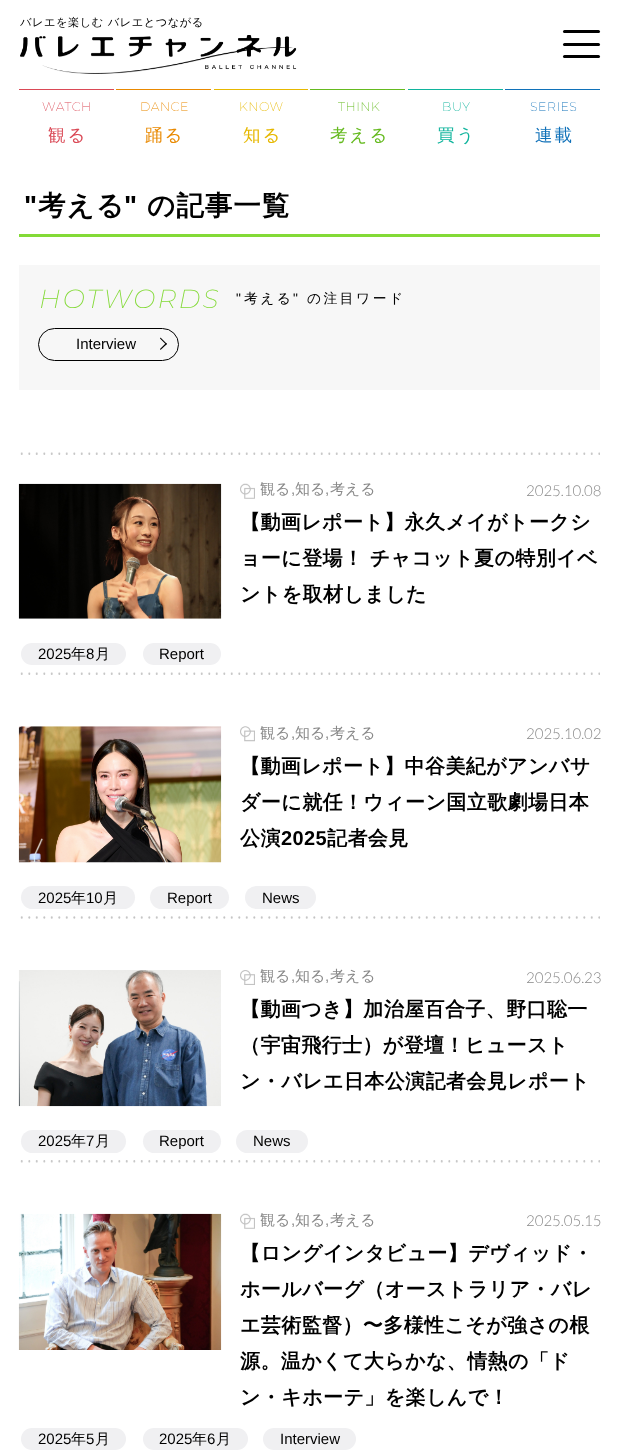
<svg xmlns="http://www.w3.org/2000/svg" width="618" height="1455">
<rect width="100%" height="100%" fill="#fff"/>
<text x="20" y="26" style="font-family:WenQuanYi Zen Hei;font-size:11.25px;font-weight:500;letter-spacing:0.5px;fill:#000">バレエを楽しむ バレエとつながる</text>
<image x="20" y="35" width="277" height="39" href="media/1.png"/>
<rect x="19" y="89" width="95" height="1" fill="#da4956"/>
<text x="42" y="111" style="font-family:Montserrat;font-size:12.5px;font-weight:200;letter-spacing:0.5px;fill:#da4956">WATCH</text>
<text x="48" y="141" style="font-family:WenQuanYi Zen Hei;font-size:17.5px;font-weight:500;letter-spacing:2px;fill:#da4956">観る</text>
<rect x="116" y="89" width="95" height="1" fill="#e98900"/>
<text x="140" y="111" style="font-family:Montserrat;font-size:12.5px;font-weight:200;letter-spacing:0.5px;fill:#e98900">DANCE</text>
<text x="145" y="141" style="font-family:WenQuanYi Zen Hei;font-size:17.5px;font-weight:500;letter-spacing:2px;fill:#e98900">踊る</text>
<rect x="214" y="89" width="94" height="1" fill="#e6b800"/>
<text x="239" y="111" style="font-family:Montserrat;font-size:12.5px;font-weight:200;letter-spacing:0.5px;fill:#e6b800">KNOW</text>
<text x="243" y="141" style="font-family:WenQuanYi Zen Hei;font-size:17.5px;font-weight:500;letter-spacing:2px;fill:#e6b800">知る</text>
<rect x="310" y="89" width="95" height="1" fill="#65ba1f"/>
<text x="338" y="111" style="font-family:Montserrat;font-size:12.5px;font-weight:200;letter-spacing:0.5px;fill:#65ba1f">THINK</text>
<text x="330" y="141" style="font-family:WenQuanYi Zen Hei;font-size:17.5px;font-weight:500;letter-spacing:2px;fill:#65ba1f">考える</text>
<rect x="408" y="89" width="95" height="1" fill="#10b49d"/>
<text x="442" y="111" style="font-family:Montserrat;font-size:12.5px;font-weight:200;letter-spacing:0.5px;fill:#10b49d">BUY</text>
<text x="437" y="141" style="font-family:WenQuanYi Zen Hei;font-size:17.5px;font-weight:500;letter-spacing:2px;fill:#10b49d">買う</text>
<rect x="505" y="89" width="95" height="1" fill="#1071b9"/>
<text x="530" y="111" style="font-family:Montserrat;font-size:12.5px;font-weight:200;letter-spacing:0.5px;fill:#1071b9">SERIES</text>
<text x="535" y="141" style="font-family:WenQuanYi Zen Hei;font-size:17.5px;font-weight:500;letter-spacing:2px;fill:#1071b9">連載</text>
<rect x="563" y="30" width="37" height="3" rx="1.5" fill="#000"/>
<rect x="563" y="43" width="37" height="3" rx="1.5" fill="#000"/>
<rect x="563" y="55" width="37" height="3" rx="1.5" fill="#000"/>
<rect x="19" y="234" width="581" height="3" fill="#83da37"/>
<text x="24" y="215" style="font-family:Liberation Sans;font-size:27.5px;font-weight:bold;letter-spacing:1px;fill:#000">"</text>
<text x="38" y="215" style="font-family:WenQuanYi Zen Hei;font-size:27.5px;font-weight:bold;letter-spacing:1px;fill:#000">考える</text>
<text x="124" y="215" style="font-family:Liberation Sans;font-size:27.5px;font-weight:bold;letter-spacing:1px;fill:#000">"</text>
<text x="147" y="215" style="font-family:WenQuanYi Zen Hei;font-size:27.5px;font-weight:bold;letter-spacing:1px;fill:#000">の記事一覧</text>
<rect x="19" y="265" width="581" height="125" fill="#f7f7f7"/>
<text x="39" y="308" style="font-family:Montserrat;font-size:26.25px;font-weight:200;font-style:italic;letter-spacing:2.25px;fill:#83da37">HOTWORDS</text>
<text x="236" y="303" style="font-family:Liberation Sans;font-size:13.75px;letter-spacing:2.5px;fill:#000">"</text>
<text x="244" y="303" style="font-family:WenQuanYi Zen Hei;font-size:13.75px;font-weight:500;letter-spacing:2.5px;fill:#000">考える</text>
<text x="293" y="303" style="font-family:Liberation Sans;font-size:13.75px;letter-spacing:2.5px;fill:#000">"</text>
<text x="307" y="303" style="font-family:WenQuanYi Zen Hei;font-size:13.75px;font-weight:500;letter-spacing:2.5px;fill:#000">の注目ワード</text>
<rect x="38.5" y="328.5" width="140" height="32" rx="16" fill="none" stroke="#000"/>
<text x="76" y="349" style="font-family:Liberation Sans;font-size:15px;fill:#000">Interview</text>
<path d="M160 338.5l.5-1l6.5 6.5l-1 .5z" fill="#000"/>
<path d="M160 349l6-6l1 1l-6.5 6z" fill="#000"/>
<image x="20" y="452" width="580" height="3" href="media/2.png"/>
<image x="18" y="483" width="204" height="136" href="media/3.png"/>
<image x="240" y="483" width="15" height="16" href="media/4.png"/>
<text x="260" y="494" style="font-family:WenQuanYi Zen Hei;font-size:15px;font-weight:500;fill:#898989">観る</text>
<text x="291" y="494" style="font-family:Liberation Sans;font-size:15px;fill:#898989">,</text>
<text x="295" y="494" style="font-family:WenQuanYi Zen Hei;font-size:15px;font-weight:500;fill:#898989">知る</text>
<text x="325" y="494" style="font-family:Liberation Sans;font-size:15px;fill:#898989">,</text>
<text x="330" y="494" style="font-family:WenQuanYi Zen Hei;font-size:15px;font-weight:500;fill:#898989">考える</text>
<text x="526" y="496" style="font-family:Lato;font-size:15px;font-weight:300;fill:#898989">2025.10.08</text>
<text x="240" y="529" style="font-family:WenQuanYi Zen Hei;font-size:20px;font-weight:bold;letter-spacing:0.4px;fill:#000">【動画レポート】永久メイがトークシ</text>
<text x="240" y="565" style="font-family:WenQuanYi Zen Hei;font-size:20px;font-weight:bold;letter-spacing:0.4px;fill:#000">ョーに登場！ チャコット夏の特別イベ</text>
<text x="240" y="601" style="font-family:WenQuanYi Zen Hei;font-size:20px;font-weight:bold;letter-spacing:0.4px;fill:#000">ントを取材しました</text>
<rect x="21" y="643" width="105" height="22" rx="11" fill="#f0f0f2"/>
<text x="38" y="659" style="font-family:Liberation Sans;font-size:15px;fill:#000">2025</text>
<text x="71" y="659" style="font-family:WenQuanYi Zen Hei;font-size:15px;font-weight:500;fill:#000">年</text>
<text x="86" y="659" style="font-family:Liberation Sans;font-size:15px;fill:#000">8</text>
<text x="95" y="659" style="font-family:WenQuanYi Zen Hei;font-size:15px;font-weight:500;fill:#000">月</text>
<rect x="143" y="643" width="78" height="22" rx="11" fill="#f0f0f2"/>
<text x="159" y="659" style="font-family:Liberation Sans;font-size:15px;fill:#000">Report</text>
<image x="20" y="672" width="580" height="3" href="media/2.png"/>
<image x="18" y="726" width="204" height="137" href="media/5.png"/>
<image x="240" y="726" width="15" height="16" href="media/6.png"/>
<text x="260" y="738" style="font-family:WenQuanYi Zen Hei;font-size:15px;font-weight:500;fill:#898989">観る</text>
<text x="291" y="738" style="font-family:Liberation Sans;font-size:15px;fill:#898989">,</text>
<text x="295" y="738" style="font-family:WenQuanYi Zen Hei;font-size:15px;font-weight:500;fill:#898989">知る</text>
<text x="325" y="738" style="font-family:Liberation Sans;font-size:15px;fill:#898989">,</text>
<text x="330" y="738" style="font-family:WenQuanYi Zen Hei;font-size:15px;font-weight:500;fill:#898989">考える</text>
<text x="526" y="739" style="font-family:Lato;font-size:15px;font-weight:300;fill:#898989">2025.10.02</text>
<text x="240" y="773" style="font-family:WenQuanYi Zen Hei;font-size:20px;font-weight:bold;letter-spacing:0.4px;fill:#000">【動画レポート】中谷美紀がアンバサ</text>
<text x="240" y="809" style="font-family:WenQuanYi Zen Hei;font-size:20px;font-weight:bold;letter-spacing:0.4px;fill:#000">ダーに就任！ウィーン国立歌劇場日本</text>
<text x="240" y="845" style="font-family:WenQuanYi Zen Hei;font-size:20px;font-weight:bold;letter-spacing:0.4px;fill:#000">公演</text>
<text x="281" y="845" style="font-family:Liberation Sans;font-size:20px;font-weight:bold;letter-spacing:0.4px;fill:#000">2025</text>
<text x="327" y="845" style="font-family:WenQuanYi Zen Hei;font-size:20px;font-weight:bold;letter-spacing:0.4px;fill:#000">記者会見</text>
<rect x="21" y="886" width="114" height="23" rx="11.5" fill="#f0f0f2"/>
<text x="38" y="903" style="font-family:Liberation Sans;font-size:15px;fill:#000">2025</text>
<text x="71" y="903" style="font-family:WenQuanYi Zen Hei;font-size:15px;font-weight:500;fill:#000">年</text>
<text x="86" y="903" style="font-family:Liberation Sans;font-size:15px;fill:#000">10</text>
<text x="103" y="903" style="font-family:WenQuanYi Zen Hei;font-size:15px;font-weight:500;fill:#000">月</text>
<rect x="150" y="886" width="79" height="23" rx="11.5" fill="#f0f0f2"/>
<text x="167" y="903" style="font-family:Liberation Sans;font-size:15px;fill:#000">Report</text>
<rect x="245" y="886" width="71" height="23" rx="11.5" fill="#f0f0f2"/>
<text x="262" y="903" style="font-family:Liberation Sans;font-size:15px;fill:#000">News</text>
<image x="20" y="916" width="580" height="3" href="media/7.png"/>
<image x="18" y="970" width="203" height="137" href="media/8.png"/>
<image x="240" y="970" width="15" height="15" href="media/9.png"/>
<text x="260" y="981" style="font-family:WenQuanYi Zen Hei;font-size:15px;font-weight:500;fill:#898989">観る</text>
<text x="291" y="981" style="font-family:Liberation Sans;font-size:15px;fill:#898989">,</text>
<text x="295" y="981" style="font-family:WenQuanYi Zen Hei;font-size:15px;font-weight:500;fill:#898989">知る</text>
<text x="325" y="981" style="font-family:Liberation Sans;font-size:15px;fill:#898989">,</text>
<text x="330" y="981" style="font-family:WenQuanYi Zen Hei;font-size:15px;font-weight:500;fill:#898989">考える</text>
<text x="526" y="983" style="font-family:Lato;font-size:15px;font-weight:300;fill:#898989">2025.06.23</text>
<text x="240" y="1016" style="font-family:WenQuanYi Zen Hei;font-size:20px;font-weight:bold;letter-spacing:0.4px;fill:#000">【動画つき】加治屋百合子、野口聡一</text>
<text x="240" y="1052" style="font-family:WenQuanYi Zen Hei;font-size:20px;font-weight:bold;letter-spacing:0.4px;fill:#000">（宇宙飛行士）が登壇！ヒュースト</text>
<text x="240" y="1088" style="font-family:WenQuanYi Zen Hei;font-size:20px;font-weight:bold;letter-spacing:0.4px;fill:#000">ン・バレエ日本公演記者会見レポート</text>
<rect x="21" y="1130" width="105" height="23" rx="11.5" fill="#f0f0f2"/>
<text x="38" y="1146" style="font-family:Liberation Sans;font-size:15px;fill:#000">2025</text>
<text x="71" y="1146" style="font-family:WenQuanYi Zen Hei;font-size:15px;font-weight:500;fill:#000">年</text>
<text x="86" y="1146" style="font-family:Liberation Sans;font-size:15px;fill:#000">7</text>
<text x="95" y="1146" style="font-family:WenQuanYi Zen Hei;font-size:15px;font-weight:500;fill:#000">月</text>
<rect x="143" y="1130" width="78" height="23" rx="11.5" fill="#f0f0f2"/>
<text x="159" y="1146" style="font-family:Liberation Sans;font-size:15px;fill:#000">Report</text>
<rect x="236" y="1130" width="72" height="23" rx="11.5" fill="#f0f0f2"/>
<text x="253" y="1146" style="font-family:Liberation Sans;font-size:15px;fill:#000">News</text>
<image x="20" y="1160" width="580" height="3" href="media/10.png"/>
<image x="18" y="1213" width="204" height="137" href="media/11.png"/>
<image x="240" y="1213" width="15" height="16" href="media/4.png"/>
<text x="260" y="1225" style="font-family:WenQuanYi Zen Hei;font-size:15px;font-weight:500;fill:#898989">観る</text>
<text x="291" y="1225" style="font-family:Liberation Sans;font-size:15px;fill:#898989">,</text>
<text x="295" y="1225" style="font-family:WenQuanYi Zen Hei;font-size:15px;font-weight:500;fill:#898989">知る</text>
<text x="325" y="1225" style="font-family:Liberation Sans;font-size:15px;fill:#898989">,</text>
<text x="330" y="1225" style="font-family:WenQuanYi Zen Hei;font-size:15px;font-weight:500;fill:#898989">考える</text>
<text x="526" y="1226" style="font-family:Lato;font-size:15px;font-weight:300;fill:#898989">2025.05.15</text>
<text x="240" y="1260" style="font-family:WenQuanYi Zen Hei;font-size:20px;font-weight:bold;letter-spacing:0.4px;fill:#000">【ロングインタビュー】デヴィッド・</text>
<text x="240" y="1296" style="font-family:WenQuanYi Zen Hei;font-size:20px;font-weight:bold;letter-spacing:0.4px;fill:#000">ホールバーグ（オーストラリア・バレ</text>
<text x="240" y="1332" style="font-family:WenQuanYi Zen Hei;font-size:20px;font-weight:bold;letter-spacing:0.4px;fill:#000">エ芸術監督）〜多様性こそが強さの根</text>
<text x="240" y="1368" style="font-family:WenQuanYi Zen Hei;font-size:20px;font-weight:bold;letter-spacing:0.4px;fill:#000">源。温かくて大らかな、情熱の「ド</text>
<text x="240" y="1404" style="font-family:WenQuanYi Zen Hei;font-size:20px;font-weight:bold;letter-spacing:0.4px;fill:#000">ン・キホーテ」を楽しんで！</text>
<rect x="21" y="1428" width="105" height="22" rx="11" fill="#f0f0f2"/>
<text x="38" y="1444" style="font-family:Liberation Sans;font-size:15px;fill:#000">2025</text>
<text x="71" y="1444" style="font-family:WenQuanYi Zen Hei;font-size:15px;font-weight:500;fill:#000">年</text>
<text x="86" y="1444" style="font-family:Liberation Sans;font-size:15px;fill:#000">5</text>
<text x="95" y="1444" style="font-family:WenQuanYi Zen Hei;font-size:15px;font-weight:500;fill:#000">月</text>
<rect x="143" y="1428" width="105" height="22" rx="11" fill="#f0f0f2"/>
<text x="159" y="1444" style="font-family:Liberation Sans;font-size:15px;fill:#000">2025</text>
<text x="192" y="1444" style="font-family:WenQuanYi Zen Hei;font-size:15px;font-weight:500;fill:#000">年</text>
<text x="207" y="1444" style="font-family:Liberation Sans;font-size:15px;fill:#000">6</text>
<text x="216" y="1444" style="font-family:WenQuanYi Zen Hei;font-size:15px;font-weight:500;fill:#000">月</text>
<rect x="263" y="1428" width="93" height="22" rx="11" fill="#f0f0f2"/>
<text x="280" y="1444" style="font-family:Liberation Sans;font-size:15px;fill:#000">Interview</text>
</svg>
